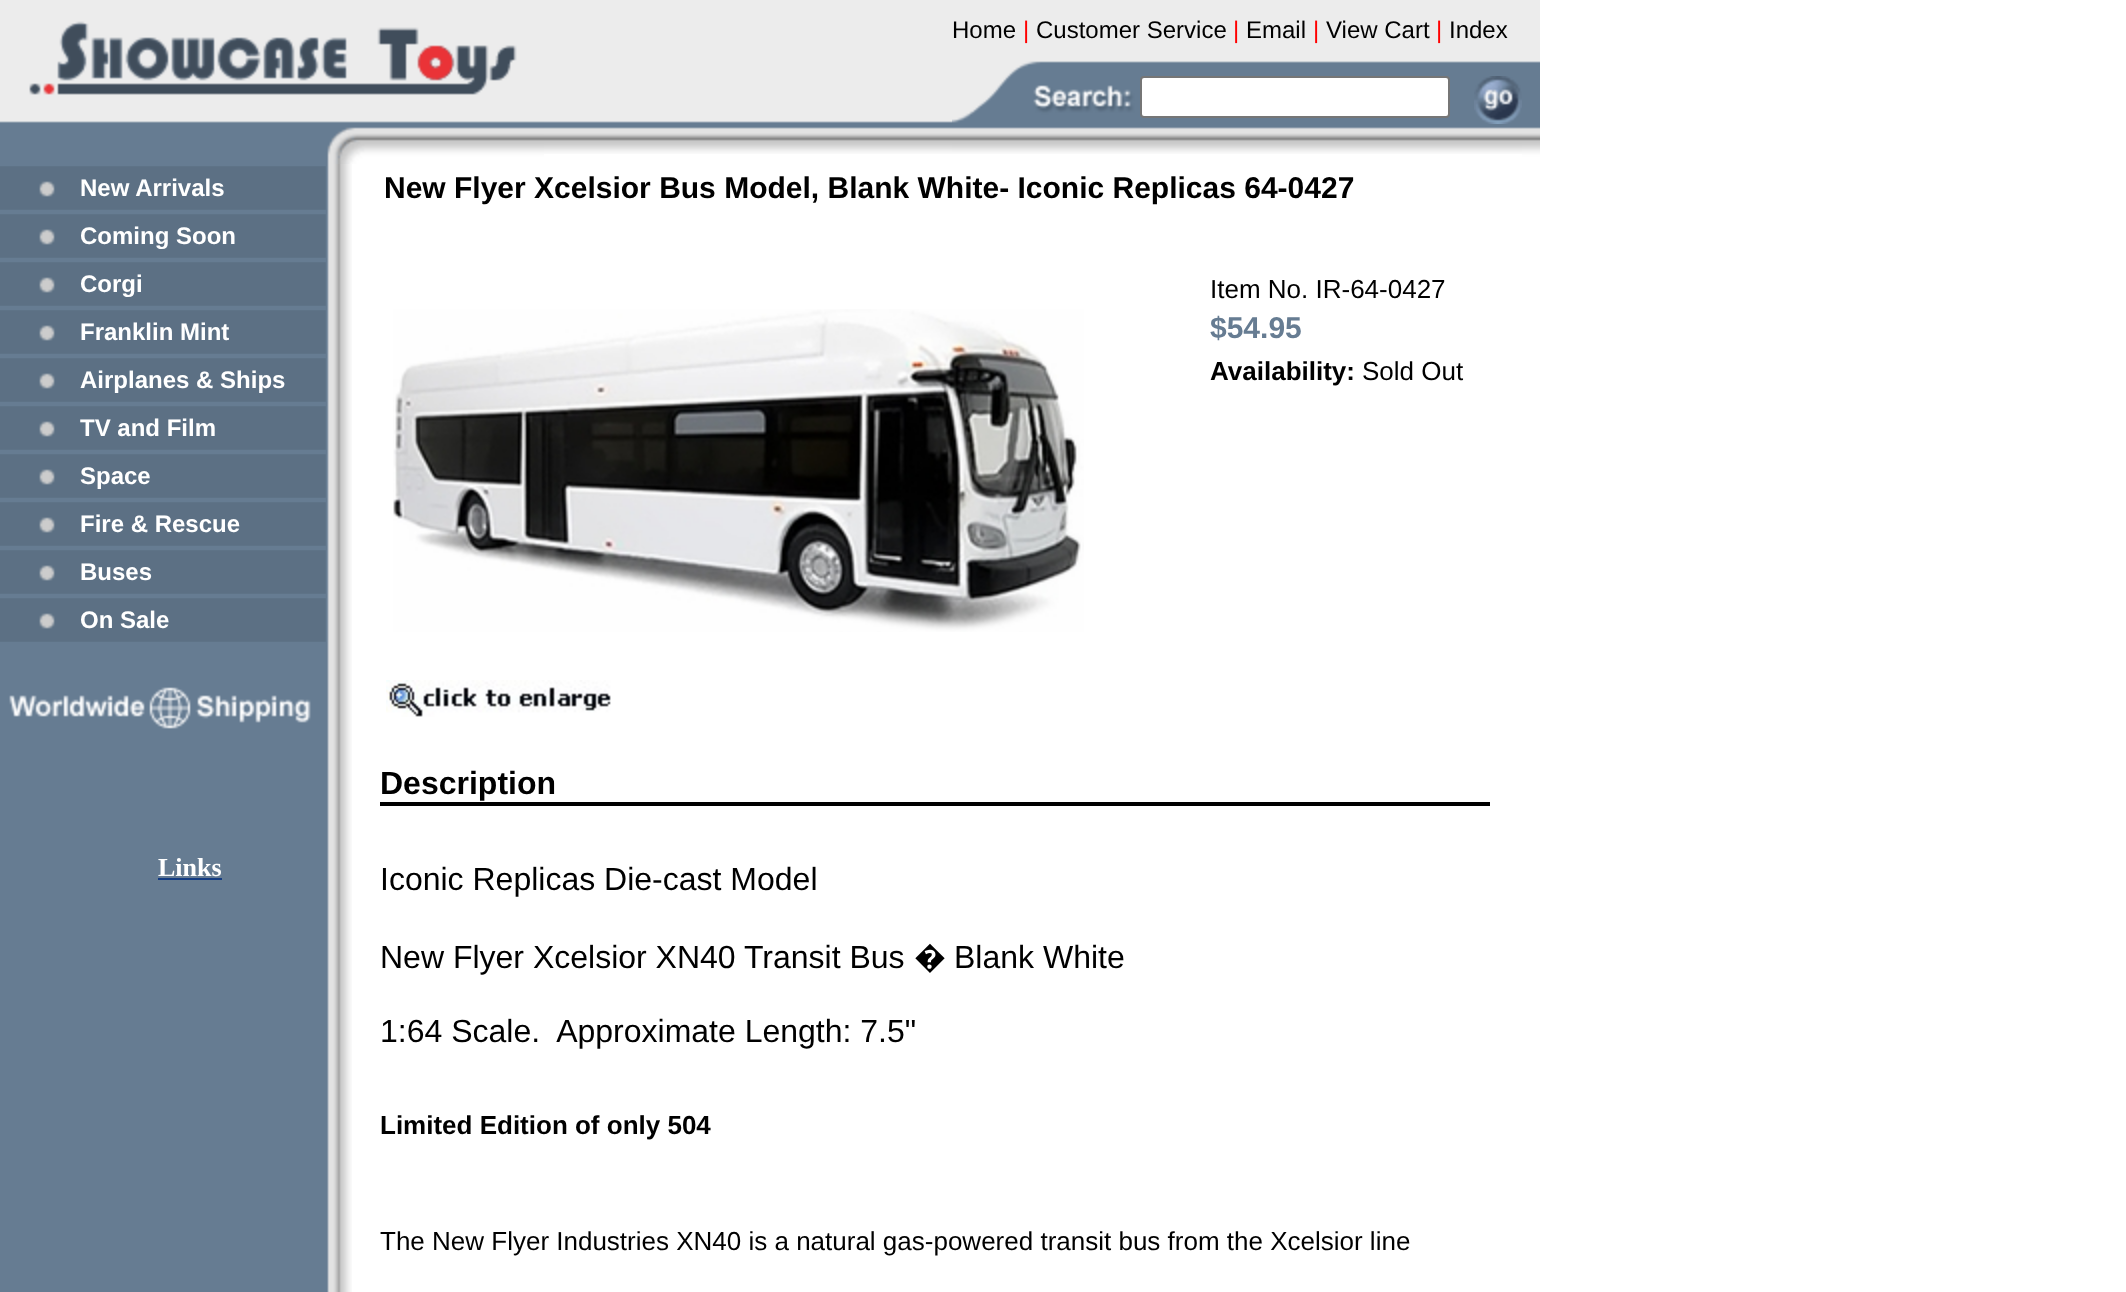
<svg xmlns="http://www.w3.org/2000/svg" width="2126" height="1292">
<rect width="100%" height="100%" fill="#fff"/>
<image x="0" y="164" width="352" height="1128" href="media/1.png"/>
<image x="0" y="0" width="544" height="164" href="media/2.png"/>
<image x="544" y="0" width="408" height="154" href="media/3.png"/>
<rect x="952" width="570" height="60" fill="#ececec"/>
<text x="952" y="38" style="font-family:Liberation Sans;font-size:24px;fill:#000">Home</text>
<text x="1023" y="38" style="font-family:Liberation Sans;font-size:24px;fill:#f00">|</text>
<text x="1036" y="38" style="font-family:Liberation Sans;font-size:24px;fill:#000">Customer Service</text>
<text x="1233" y="38" style="font-family:Liberation Sans;font-size:24px;fill:#f00">|</text>
<text x="1246" y="38" style="font-family:Liberation Sans;font-size:24px;fill:#000">Email</text>
<text x="1313" y="38" style="font-family:Liberation Sans;font-size:24px;fill:#f00">|</text>
<text x="1326" y="38" style="font-family:Liberation Sans;font-size:24px;fill:#000">View Cart</text>
<text x="1436" y="38" style="font-family:Liberation Sans;font-size:24px;fill:#f00">|</text>
<text x="1449" y="38" style="font-family:Liberation Sans;font-size:24px;fill:#000">Index</text>
<rect x="1522" width="18" height="61" fill="#ececec"/>
<image x="1522" y="61" width="18" height="103" href="media/4.png"/>
<image x="952" y="60" width="570" height="94" href="media/5.png"/>
<rect x="1141" y="77" width="308" height="40" rx="3" fill="#fff" stroke="#767676" stroke-width="2"/>
<image x="1474" y="76" width="48" height="48" href="media/6.png"/>
<image x="0" y="166" width="326" height="44" href="media/7.png"/>
<text x="80" y="196" style="font-family:Liberation Sans;font-size:24px;font-weight:bold;fill:#fff">New Arrivals</text>
<image x="0" y="214" width="326" height="44" href="media/7.png"/>
<text x="80" y="244" style="font-family:Liberation Sans;font-size:24px;font-weight:bold;fill:#fff">Coming Soon</text>
<image x="0" y="262" width="326" height="44" href="media/7.png"/>
<text x="80" y="292" style="font-family:Liberation Sans;font-size:24px;font-weight:bold;fill:#fff">Corgi</text>
<image x="0" y="310" width="326" height="44" href="media/7.png"/>
<text x="80" y="340" style="font-family:Liberation Sans;font-size:24px;font-weight:bold;fill:#fff">Franklin Mint</text>
<image x="0" y="358" width="326" height="44" href="media/7.png"/>
<text x="80" y="388" style="font-family:Liberation Sans;font-size:24px;font-weight:bold;fill:#fff">Airplanes &amp; Ships</text>
<image x="0" y="406" width="326" height="44" href="media/7.png"/>
<text x="80" y="436" style="font-family:Liberation Sans;font-size:24px;font-weight:bold;fill:#fff">TV and Film</text>
<image x="0" y="454" width="326" height="44" href="media/7.png"/>
<text x="80" y="484" style="font-family:Liberation Sans;font-size:24px;font-weight:bold;fill:#fff">Space</text>
<image x="0" y="502" width="326" height="44" href="media/7.png"/>
<text x="80" y="532" style="font-family:Liberation Sans;font-size:24px;font-weight:bold;fill:#fff">Fire &amp; Rescue</text>
<image x="0" y="550" width="326" height="44" href="media/7.png"/>
<text x="80" y="580" style="font-family:Liberation Sans;font-size:24px;font-weight:bold;fill:#fff">Buses</text>
<image x="0" y="598" width="326" height="44" href="media/7.png"/>
<text x="80" y="628" style="font-family:Liberation Sans;font-size:24px;font-weight:bold;fill:#fff">On Sale</text>
<image x="9" y="687" width="302" height="42" href="media/8.png"/>
<text x="158" y="876" style="font-family:Liberation Serif;font-size:26px;font-weight:bold;fill:#fff">Links</text>
<rect x="158" y="878" width="64" height="2" fill="#143c82"/>
<text x="384" y="198" style="font-family:Liberation Sans;font-size:30px;font-weight:bold;fill:#000">New Flyer Xcelsior Bus Model, Blank White- Iconic Replicas 64-0427</text>
<image x="393" y="309" width="691" height="323" href="media/9.png"/>
<image x="386" y="680" width="225" height="37" href="media/10.png"/>
<text x="1210" y="298" style="font-family:Liberation Sans;font-size:26px;fill:#000">Item No. IR-64-0427</text>
<text x="1210" y="338" style="font-family:Liberation Sans;font-size:30px;font-weight:bold;fill:#667c92">$54.95</text>
<text x="1210" y="380" style="font-family:Liberation Sans;font-size:26px;font-weight:bold;fill:#000">Availability:</text>
<text x="1362" y="380" style="font-family:Liberation Sans;font-size:26px;fill:#000">Sold Out</text>
<rect x="380" y="802" width="1110" height="4" fill="#000"/>
<text x="380" y="794" style="font-family:Liberation Sans;font-size:32px;font-weight:bold;fill:#000">Description</text>
<text x="380" y="890" style="font-family:Liberation Sans;font-size:32px;fill:#000">Iconic Replicas Die-cast Model</text>
<text x="380" y="968" style="font-family:Liberation Sans;font-size:32px;fill:#000">New Flyer Xcelsior XN40 Transit Bus</text>
<text x="914" y="968" style="font-family:Noto Sans;font-size:32px;fill:#000">�</text>
<text x="954" y="968" style="font-family:Liberation Sans;font-size:32px;fill:#000">Blank White</text>
<text x="380" y="1042" style="font-family:Liberation Sans;font-size:32px;fill:#000" xml:space="preserve">1:64 Scale.  Approximate Length: 7.5"</text>
<text x="380" y="1134" style="font-family:Liberation Sans;font-size:26px;font-weight:bold;fill:#000">Limited Edition of only 504</text>
<text x="380" y="1250" style="font-family:Liberation Sans;font-size:26px;fill:#000">The New Flyer Industries XN40 is a natural gas-powered transit bus from the Xcelsior line</text>
</svg>
